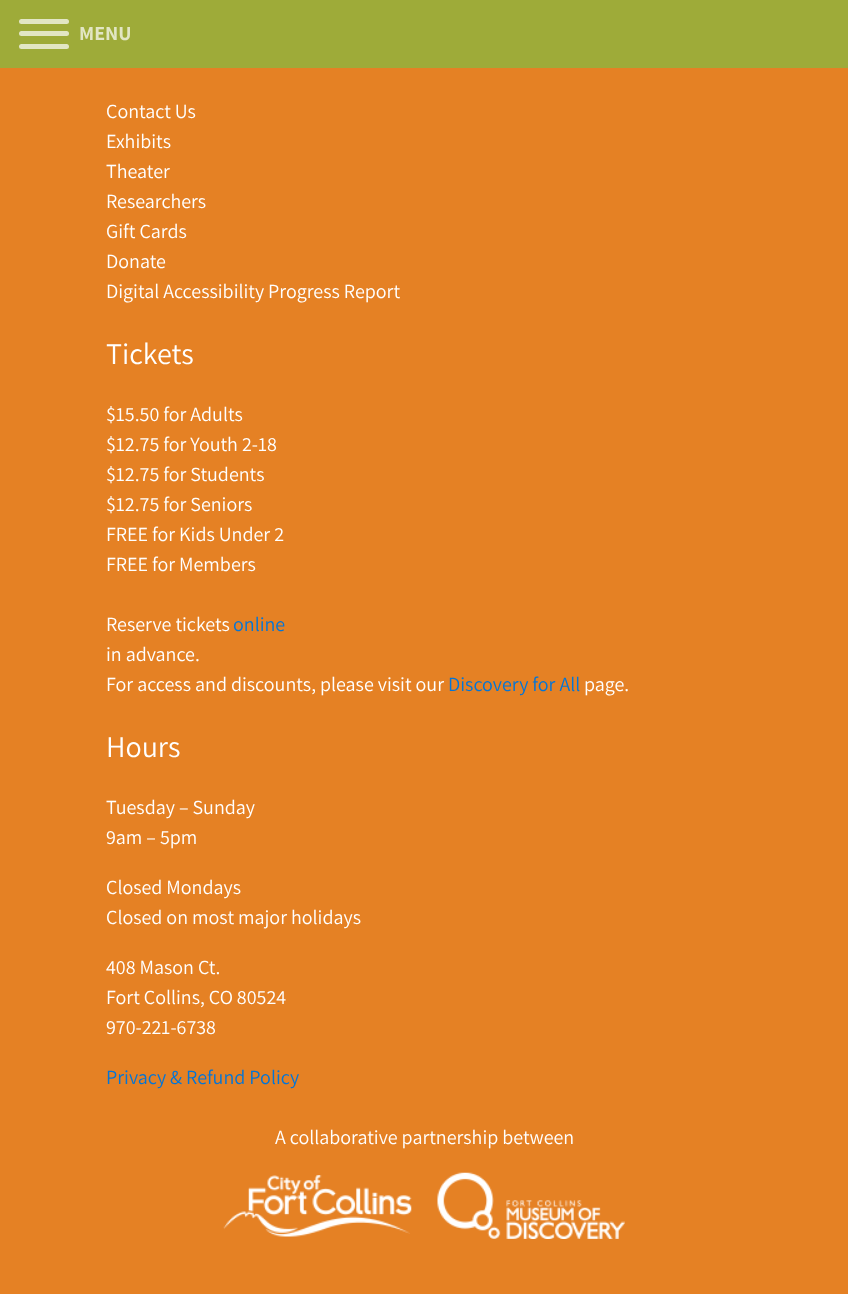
<svg xmlns="http://www.w3.org/2000/svg" width="848" height="1294">
<rect width="100%" height="100%" fill="#e58124"/>
<rect width="848" height="68" fill="#9eab39"/>
<rect x="19" y="31" width="50" height="5" rx="2.5" fill="#e2e6c4"/>
<rect x="19" y="19" width="50" height="5" rx="2.5" fill="#e2e6c4"/>
<rect x="19" y="44" width="50" height="5" rx="2.5" fill="#e2e6c4"/>
<text x="79" y="40" style="font-family:Assistant;font-size:20px;font-weight:bold;fill:#e2e6c4">MENU</text>
<text x="106" y="118" style="font-family:Assistant;font-size:20px;fill:#fff">Contact Us</text>
<text x="106" y="148" style="font-family:Assistant;font-size:20px;fill:#fff">Exhibits</text>
<text x="106" y="178" style="font-family:Assistant;font-size:20px;fill:#fff">Theater</text>
<text x="106" y="208" style="font-family:Assistant;font-size:20px;fill:#fff">Researchers</text>
<text x="106" y="238" style="font-family:Assistant;font-size:20px;fill:#fff">Gift Cards</text>
<text x="106" y="268" style="font-family:Assistant;font-size:20px;fill:#fff">Donate</text>
<text x="106" y="298" style="font-family:Assistant;font-size:20px;fill:#fff">Digital Accessibility Progress Report</text>
<text x="106" y="364" style="font-family:Assistant;font-size:30px;fill:#fff">Tickets</text>
<text x="106" y="421" style="font-family:Assistant;font-size:20px;fill:#fff">$15.50 for Adults</text>
<text x="106" y="451" style="font-family:Assistant;font-size:20px;fill:#fff">$12.75 for Youth 2-18</text>
<text x="106" y="481" style="font-family:Assistant;font-size:20px;fill:#fff">$12.75 for Students</text>
<text x="106" y="511" style="font-family:Assistant;font-size:20px;fill:#fff">$12.75 for Seniors</text>
<text x="106" y="541" style="font-family:Assistant;font-size:20px;fill:#fff">FREE for Kids Under 2</text>
<text x="106" y="571" style="font-family:Assistant;font-size:20px;fill:#fff">FREE for Members</text>
<text x="106" y="631" style="font-family:Assistant;font-size:20px;fill:#fff">Reserve tickets</text>
<text x="233" y="631" style="font-family:Assistant;font-size:20px;fill:#0275d8">online</text>
<text x="106" y="661" style="font-family:Assistant;font-size:20px;fill:#fff">in advance.</text>
<text x="106" y="691" style="font-family:Assistant;font-size:20px;fill:#fff">For access and discounts, please visit our</text>
<text x="448" y="691" style="font-family:Assistant;font-size:20px;fill:#0275d8">Discovery for All</text>
<text x="584" y="691" style="font-family:Assistant;font-size:20px;fill:#fff">page.</text>
<text x="106" y="757" style="font-family:Assistant;font-size:30px;fill:#fff">Hours</text>
<text x="106" y="814" style="font-family:Assistant;font-size:20px;fill:#fff">Tuesday – Sunday</text>
<text x="106" y="844" style="font-family:Assistant;font-size:20px;fill:#fff">9am – 5pm</text>
<text x="106" y="894" style="font-family:Assistant;font-size:20px;fill:#fff">Closed Mondays</text>
<text x="106" y="924" style="font-family:Assistant;font-size:20px;fill:#fff">Closed on most major holidays</text>
<text x="106" y="974" style="font-family:Assistant;font-size:20px;fill:#fff">408 Mason Ct.</text>
<text x="106" y="1004" style="font-family:Assistant;font-size:20px;fill:#fff">Fort Collins, CO 80524</text>
<text x="106" y="1034" style="font-family:Assistant;font-size:20px;fill:#fff">970-221-6738</text>
<text x="106" y="1084" style="font-family:Assistant;font-size:20px;fill:#0275d8">Privacy &amp; Refund Policy</text>
<text x="275" y="1144" style="font-family:Assistant;font-size:20px;fill:#fff">A collaborative partnership between</text>
<image x="223" y="1175" width="189" height="62" href="media/1.png"/>
<image x="437" y="1172" width="188" height="67" href="media/2.png"/>
</svg>
